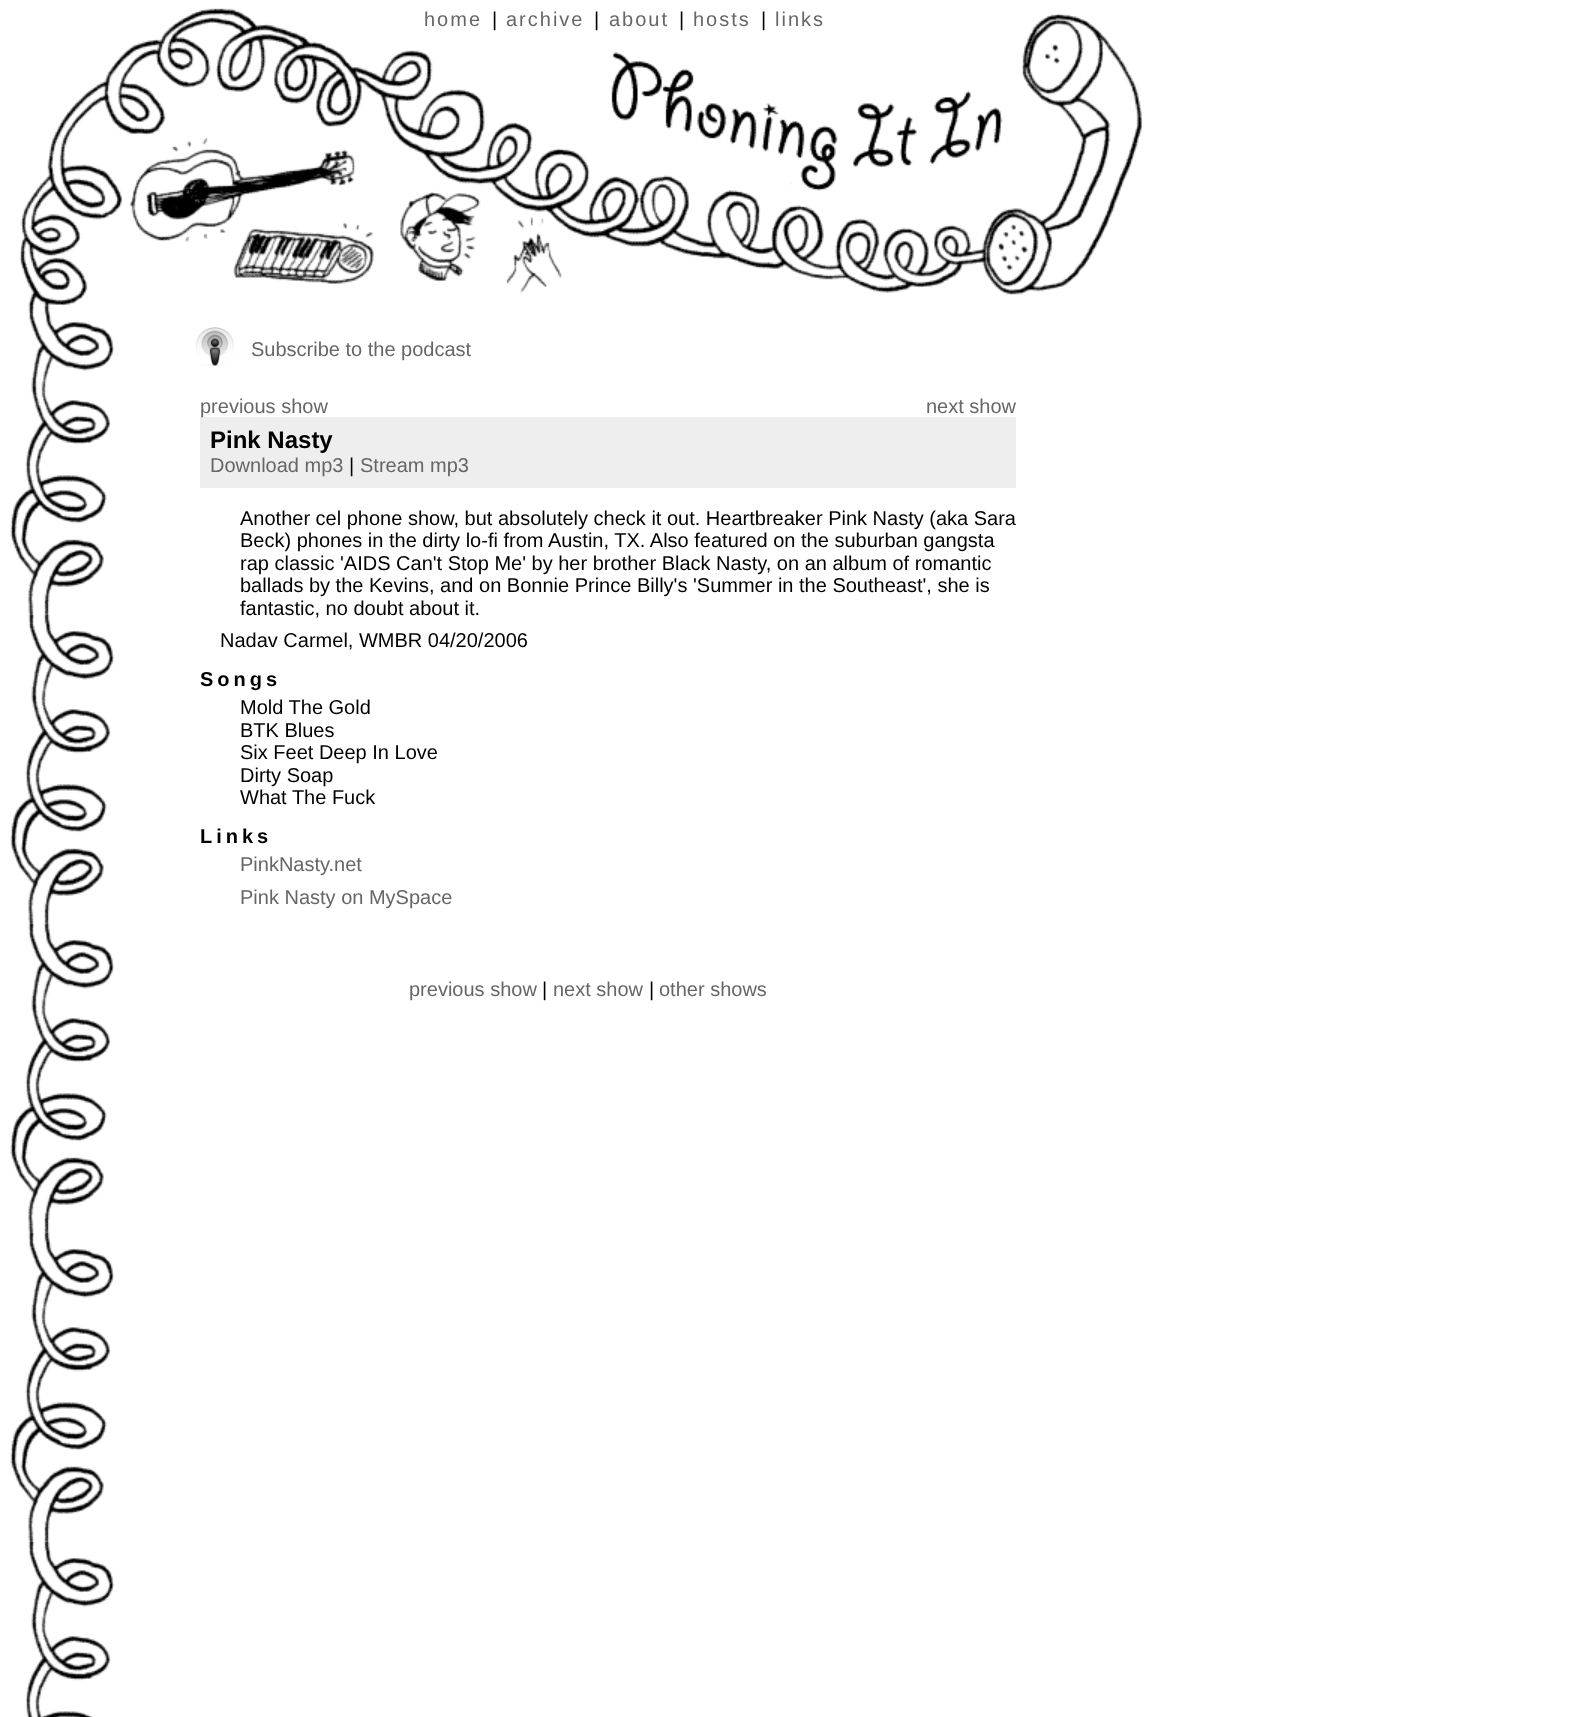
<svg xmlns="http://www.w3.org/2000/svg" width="1588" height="1717">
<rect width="100%" height="100%" fill="#fff"/>
<image x="10" y="306" width="105" height="1411" href="media/1.png"/>
<image x="19" y="8" width="1124" height="298" href="media/2.png"/>
<text x="424" y="26" style="font-family:Liberation Sans;font-size:20px;letter-spacing:2px;fill:#666">home</text>
<text x="492" y="26" style="font-family:Liberation Sans;font-size:20px;fill:#000">|</text>
<text x="506" y="26" style="font-family:Liberation Sans;font-size:20px;letter-spacing:2px;fill:#666">archive</text>
<text x="594" y="26" style="font-family:Liberation Sans;font-size:20px;fill:#000">|</text>
<text x="609" y="26" style="font-family:Liberation Sans;font-size:20px;letter-spacing:2px;fill:#666">about</text>
<text x="679" y="26" style="font-family:Liberation Sans;font-size:20px;fill:#000">|</text>
<text x="693" y="26" style="font-family:Liberation Sans;font-size:20px;letter-spacing:2px;fill:#666">hosts</text>
<text x="761" y="26" style="font-family:Liberation Sans;font-size:20px;fill:#000">|</text>
<text x="775" y="26" style="font-family:Liberation Sans;font-size:20px;letter-spacing:2px;fill:#666">links</text>
<image x="195" y="327" width="39" height="39" href="media/3.png"/>
<text x="251" y="356" style="font-family:Liberation Sans;font-size:20px;fill:#666">Subscribe to the podcast</text>
<rect x="200" y="417" width="816" height="71" fill="#eee"/>
<text x="200" y="413" style="font-family:Liberation Sans;font-size:20px;fill:#666">previous show</text>
<text x="926" y="413" style="font-family:Liberation Sans;font-size:20px;fill:#666">next show</text>
<text x="210" y="448" style="font-family:Liberation Sans;font-size:24px;font-weight:bold;fill:#000">Pink Nasty</text>
<text x="210" y="472" style="font-family:Liberation Sans;font-size:20px;fill:#666">Download mp3</text>
<text x="349" y="472" style="font-family:Liberation Sans;font-size:20px;fill:#000">|</text>
<text x="360" y="472" style="font-family:Liberation Sans;font-size:20px;fill:#666">Stream mp3</text>
<text x="240" y="525" style="font-family:Liberation Sans;font-size:20px;fill:#000">Another cel phone show, but absolutely check it out. Heartbreaker Pink Nasty (aka Sara</text>
<text x="240" y="547" style="font-family:Liberation Sans;font-size:20px;fill:#000">Beck) phones in the dirty lo-fi from Austin, TX. Also featured on the suburban gangsta</text>
<text x="240" y="570" style="font-family:Liberation Sans;font-size:20px;fill:#000">rap classic 'AIDS Can't Stop Me' by her brother Black Nasty, on an album of romantic</text>
<text x="240" y="592" style="font-family:Liberation Sans;font-size:20px;fill:#000">ballads by the Kevins, and on Bonnie Prince Billy's 'Summer in the Southeast', she is</text>
<text x="240" y="615" style="font-family:Liberation Sans;font-size:20px;fill:#000">fantastic, no doubt about it.</text>
<text x="220" y="647" style="font-family:Liberation Sans;font-size:20px;fill:#000">Nadav Carmel, WMBR 04/20/2006</text>
<text x="200" y="686" style="font-family:Liberation Sans;font-size:20px;font-weight:bold;letter-spacing:4px;fill:#000">Songs</text>
<text x="240" y="714" style="font-family:Liberation Sans;font-size:20px;fill:#000">Mold The Gold</text>
<text x="240" y="737" style="font-family:Liberation Sans;font-size:20px;fill:#000">BTK Blues</text>
<text x="240" y="759" style="font-family:Liberation Sans;font-size:20px;fill:#000">Six Feet Deep In Love</text>
<text x="240" y="782" style="font-family:Liberation Sans;font-size:20px;fill:#000">Dirty Soap</text>
<text x="240" y="804" style="font-family:Liberation Sans;font-size:20px;fill:#000">What The Fuck</text>
<text x="200" y="843" style="font-family:Liberation Sans;font-size:20px;font-weight:bold;letter-spacing:4px;fill:#000">Links</text>
<text x="240" y="871" style="font-family:Liberation Sans;font-size:20px;fill:#666">PinkNasty.net</text>
<text x="240" y="904" style="font-family:Liberation Sans;font-size:20px;fill:#666">Pink Nasty on MySpace</text>
<text x="409" y="996" style="font-family:Liberation Sans;font-size:20px;fill:#666">previous show</text>
<text x="542" y="996" style="font-family:Liberation Sans;font-size:20px;fill:#000">|</text>
<text x="553" y="996" style="font-family:Liberation Sans;font-size:20px;fill:#666">next show</text>
<text x="649" y="996" style="font-family:Liberation Sans;font-size:20px;fill:#000">|</text>
<text x="659" y="996" style="font-family:Liberation Sans;font-size:20px;fill:#666">other shows</text>
</svg>
